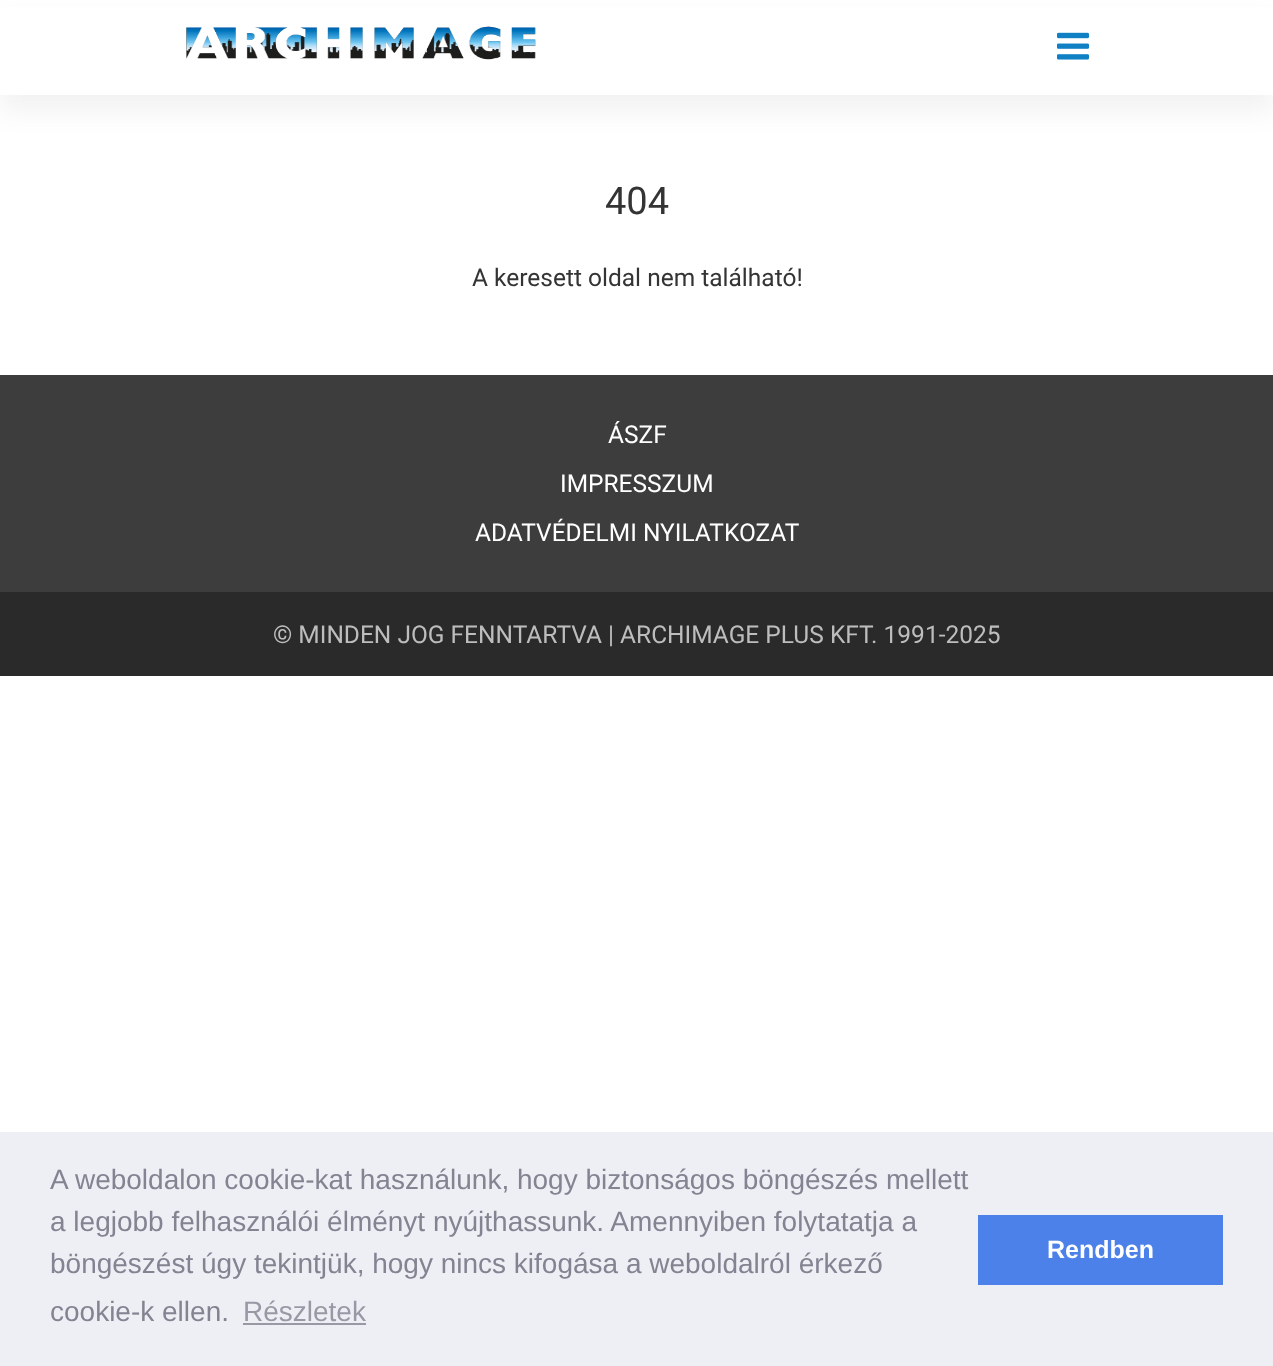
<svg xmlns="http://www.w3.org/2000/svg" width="1273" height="1366">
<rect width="100%" height="100%" fill="#fff"/>
<rect y="18" width="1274" height="94" fill="#0000000d" filter="blur(13px)"/>
<rect y="7" width="1273" height="88" fill="#fff"/>
<image x="186" y="26" width="350" height="34" href="media/1.png"/>
<image x="1057" y="32" width="32" height="28" href="media/2.png"/>
<text x="605" y="214" style="font-family:Roboto;font-size:38px;fill:#343434">404</text>
<text x="472" y="286" style="font-family:Roboto;font-size:24.5px;fill:#343434">A keresett oldal nem található!</text>
<rect y="375" width="1273" height="217" fill="#3d3d3d"/>
<text x="608" y="443" style="font-family:Roboto;font-size:24.5px;fill:#fff">ÁSZF</text>
<text x="560" y="492" style="font-family:Roboto;font-size:24.5px;fill:#fff">IMPRESSZUM</text>
<text x="475" y="541" style="font-family:Roboto;font-size:24.5px;fill:#fff">ADATVÉDELMI NYILATKOZAT</text>
<rect y="592" width="1273" height="84" fill="#2a2a2a"/>
<text x="273" y="643" style="font-family:Roboto;font-size:24.5px;fill:#bdbdbd">© MINDEN JOG FENNTARTVA | ARCHIMAGE PLUS KFT. 1991-2025</text>
<rect y="1132" width="1273" height="234" fill="#edeff5"/>
<text x="50" y="1189" style="font-family:Liberation Sans;font-size:28px;fill:#838391">A weboldalon cookie-kat használunk, hogy biztonságos böngészés mellett</text>
<text x="50" y="1231" style="font-family:Liberation Sans;font-size:28px;fill:#838391">a legjobb felhasználói élményt nyújthassunk. Amennyiben folytatatja a</text>
<text x="50" y="1273" style="font-family:Liberation Sans;font-size:28px;fill:#838391">böngészést úgy tekintjük, hogy nincs kifogása a weboldalról érkező</text>
<text x="50" y="1321" style="font-family:Liberation Sans;font-size:28px;fill:#838391">cookie-k ellen.</text>
<text x="243" y="1321" style="font-family:Liberation Sans;font-size:28px;fill:#9899a5">Részletek</text>
<rect x="243" y="1323" width="123" height="2" fill="#9899a5"/>
<rect x="978" y="1215" width="245" height="70" fill="#4b81e8"/>
<text x="1047" y="1258" style="font-family:Liberation Sans;font-size:25px;font-weight:bold;fill:#fff">Rendben</text>
</svg>
